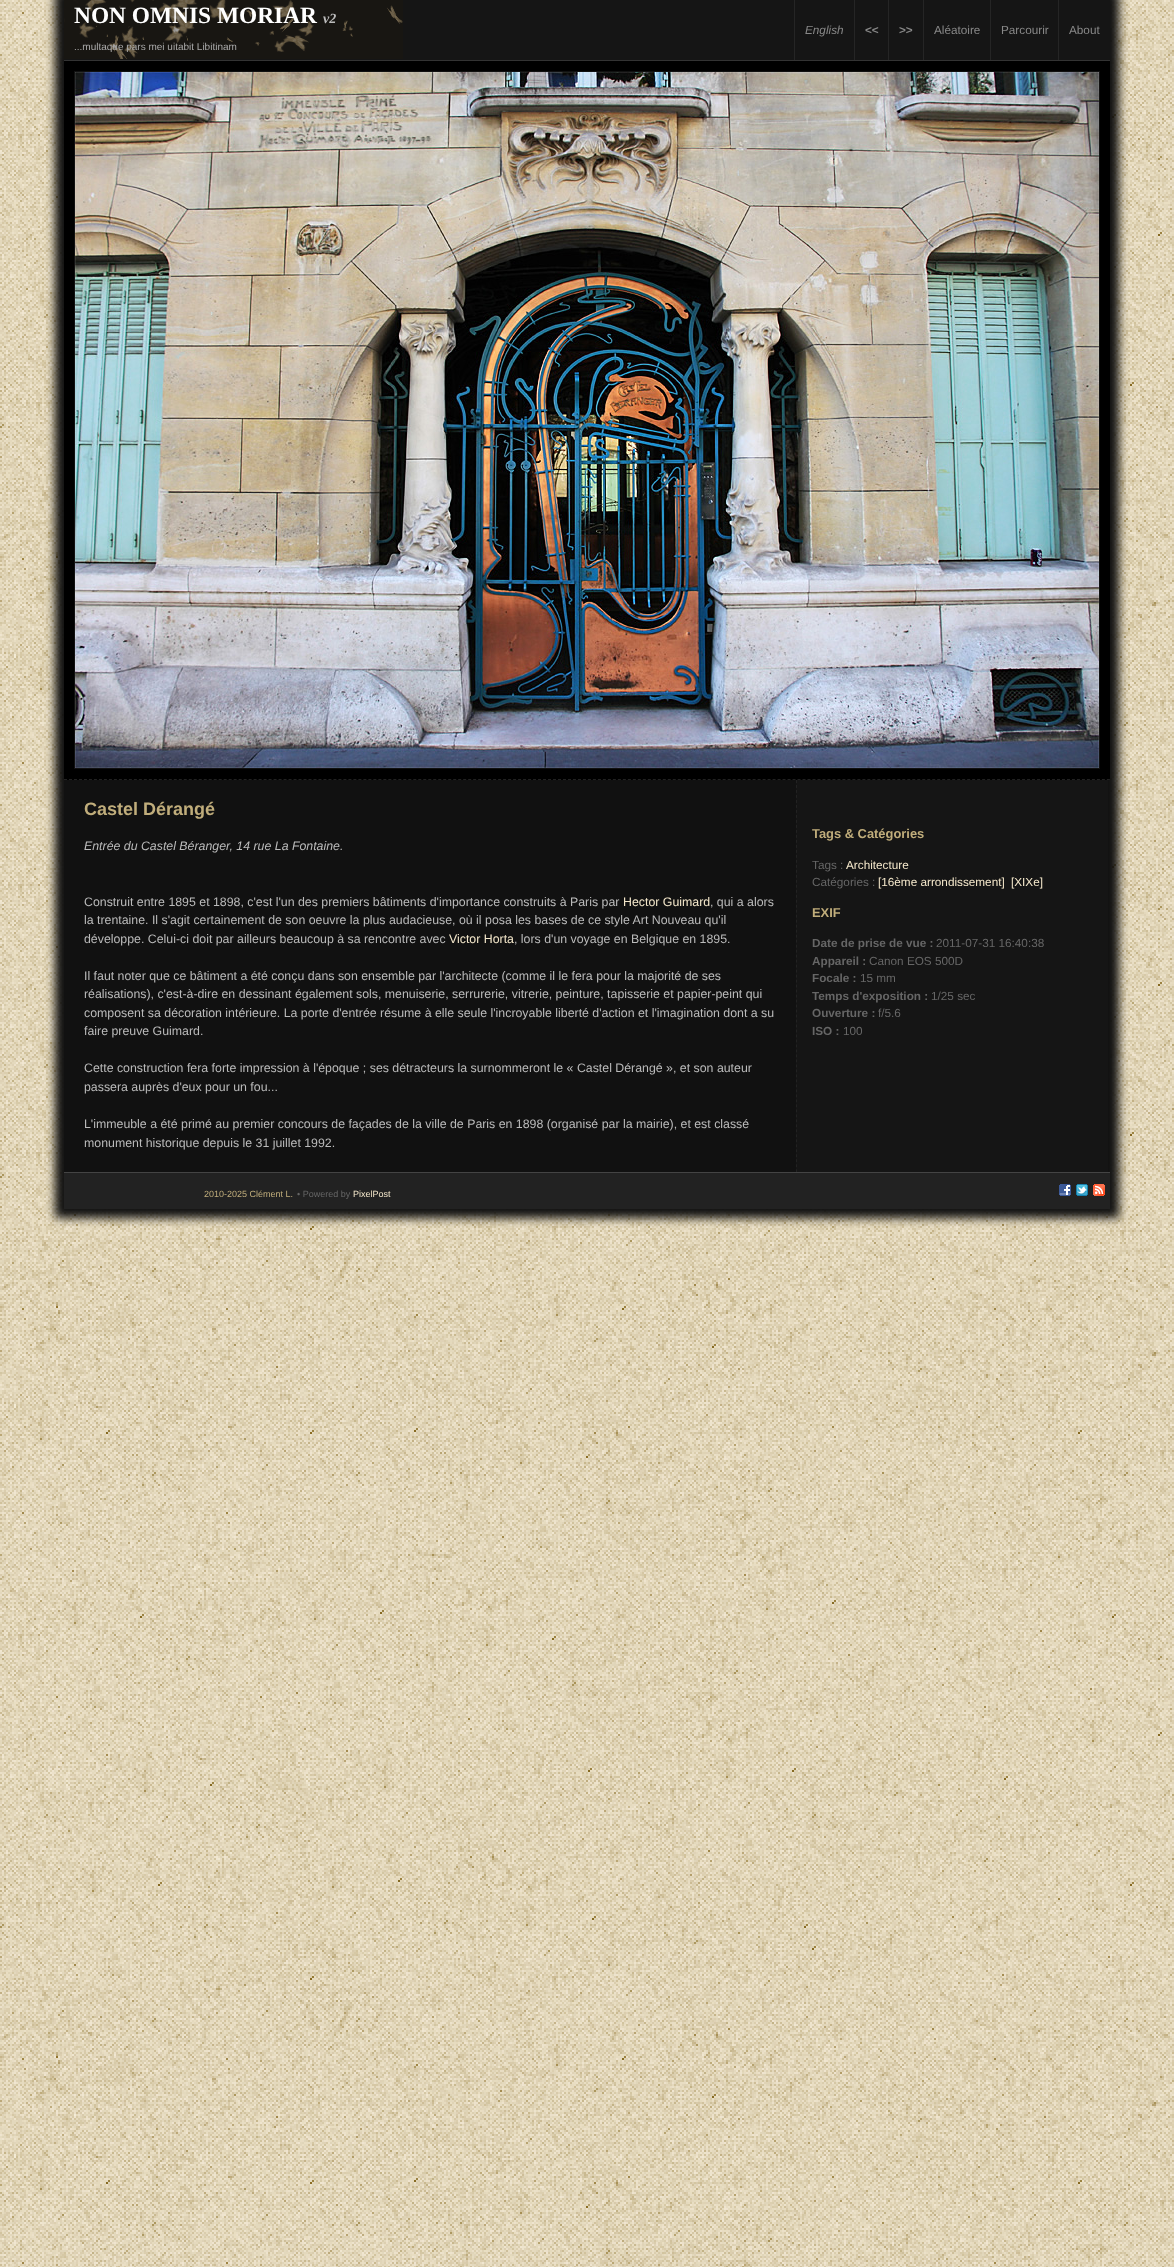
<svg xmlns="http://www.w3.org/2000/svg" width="1174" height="2267">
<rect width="100%" height="100%" fill="#fff"/>
<image x="0" y="0" width="1174" height="2267" href="media/1.png"/>
<rect x="55" y="-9" width="1064" height="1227" fill="#111" filter="blur(5px)"/>
<rect x="64" width="1046" height="60" fill="#151515"/>
<image x="64" y="0" width="339" height="59" href="media/2.png"/>
<rect x="64" y="60" width="1046" height="1" fill="#333"/>
<text x="74" y="23" style="font-family:Liberation Serif;font-size:23.4px;font-weight:bold;fill:#fff">NON OMNIS MORIAR</text>
<text x="323" y="23" style="font-family:Liberation Serif;font-size:14px;font-weight:bold;font-style:italic;fill:#bbb">v2</text>
<text x="74" y="50" style="font-family:Liberation Sans;font-size:10px;fill:#aaa">...multaque pars mei uitabit Libitinam</text>
<rect x="794" width="1" height="60" fill="#252525"/>
<text x="805" y="34" style="font-family:Liberation Sans;font-size:11.75px;font-style:italic;fill:#888">English</text>
<rect x="854" width="1" height="60" fill="#252525"/>
<text x="865" y="34" style="font-family:Liberation Sans;font-size:11.75px;font-weight:bold;fill:#888">&lt;&lt;</text>
<rect x="888" width="1" height="60" fill="#252525"/>
<text x="899" y="34" style="font-family:Liberation Sans;font-size:11.75px;font-weight:bold;fill:#888">&gt;&gt;</text>
<rect x="923" width="1" height="60" fill="#252525"/>
<text x="934" y="34" style="font-family:Liberation Sans;font-size:11.75px;fill:#888">Aléatoire</text>
<rect x="990" width="1" height="60" fill="#252525"/>
<text x="1001" y="34" style="font-family:Liberation Sans;font-size:11.75px;fill:#888">Parcourir</text>
<rect x="1058" width="1" height="60" fill="#252525"/>
<text x="1069" y="34" style="font-family:Liberation Sans;font-size:11.75px;fill:#888">About</text>
<rect x="64" y="61" width="1046" height="719" fill="#000"/>
<path d="M64 779.5h1046" fill="none" stroke="#222" stroke-dasharray="3 1.99"/>
<rect x="74.5" y="71.5" width="1025" height="697" fill="none" stroke="#111"/>
<image x="75" y="72" width="1024" height="696" href="media/3.png"/>
<rect x="64" y="780" width="2" height="392" fill="#111"/>
<text x="84" y="815" style="font-family:Liberation Sans;font-size:18px;font-weight:bold;fill:#c0ad7b">Castel Dérangé</text>
<text x="84" y="850" style="font-family:Liberation Sans;font-size:12.35px;font-style:italic;fill:#bbb">Entrée du Castel Béranger, 14 rue La Fontaine.</text>
<text x="84" y="906" style="font-family:Liberation Sans;font-size:12.35px;fill:#bbb">Construit entre 1895 et 1898, c'est l'un des premiers bâtiments d'importance construits à Paris par</text>
<text x="623" y="906" style="font-family:Liberation Sans;font-size:12.35px;fill:#f5e8cb">Hector Guimard</text>
<text x="710" y="906" style="font-family:Liberation Sans;font-size:12.35px;fill:#bbb">, qui a alors</text>
<text x="84" y="924" style="font-family:Liberation Sans;font-size:12.35px;fill:#bbb">la trentaine. Il s'agit certainement de son oeuvre la plus audacieuse, où il posa les bases de ce style Art Nouveau qu'il</text>
<text x="84" y="943" style="font-family:Liberation Sans;font-size:12.35px;fill:#bbb">développe. Celui-ci doit par ailleurs beaucoup à sa rencontre avec</text>
<text x="449" y="943" style="font-family:Liberation Sans;font-size:12.35px;fill:#f5e8cb">Victor Horta</text>
<text x="514" y="943" style="font-family:Liberation Sans;font-size:12.35px;fill:#bbb">, lors d'un voyage en Belgique en 1895.</text>
<text x="84" y="980" style="font-family:Liberation Sans;font-size:12.35px;fill:#bbb">Il faut noter que ce bâtiment a été conçu dans son ensemble par l'architecte (comme il le fera pour la majorité de ses</text>
<text x="84" y="998" style="font-family:Liberation Sans;font-size:12.35px;fill:#bbb">réalisations), c'est-à-dire en dessinant également sols, menuiserie, serrurerie, vitrerie, peinture, tapisserie et papier-peint qui</text>
<text x="84" y="1017" style="font-family:Liberation Sans;font-size:12.35px;fill:#bbb">composent sa décoration intérieure. La porte d'entrée résume à elle seule l'incroyable liberté d'action et l'imagination dont a su</text>
<text x="84" y="1035" style="font-family:Liberation Sans;font-size:12.35px;fill:#bbb">faire preuve Guimard.</text>
<text x="84" y="1072" style="font-family:Liberation Sans;font-size:12.35px;fill:#bbb">Cette construction fera forte impression à l'époque ; ses détracteurs la surnommeront le « Castel Dérangé », et son auteur</text>
<text x="84" y="1091" style="font-family:Liberation Sans;font-size:12.35px;fill:#bbb">passera auprès d'eux pour un fou...</text>
<text x="84" y="1128" style="font-family:Liberation Sans;font-size:12.35px;fill:#bbb">L'immeuble a été primé au premier concours de façades de la ville de Paris en 1898 (organisé par la mairie), et est classé</text>
<text x="84" y="1147" style="font-family:Liberation Sans;font-size:12.35px;fill:#bbb">monument historique depuis le 31 juillet 1992.</text>
<rect x="796" y="780" width="312" height="392" fill="#151515"/>
<path d="M796.5 780v392" fill="none" stroke="#222" stroke-dasharray="3 1.99"/>
<text x="812" y="838" style="font-family:Liberation Sans;font-size:12.9px;font-weight:bold;fill:#c0ad7b">Tags &amp; Catégories</text>
<text x="812" y="869" style="font-family:Liberation Sans;font-size:11.75px;fill:#666">Tags :</text>
<text x="846" y="869" style="font-family:Liberation Sans;font-size:11.75px;fill:#f5e8cb">Architecture</text>
<text x="812" y="886" style="font-family:Liberation Sans;font-size:11.75px;fill:#666">Catégories :</text>
<text x="878" y="886" style="font-family:Liberation Sans;font-size:11.75px;fill:#f5e8cb">[16ème arrondissement]</text>
<text x="1011" y="886" style="font-family:Liberation Sans;font-size:11.75px;fill:#f5e8cb">[XIXe]</text>
<text x="812" y="917" style="font-family:Liberation Sans;font-size:12.9px;font-weight:bold;fill:#c0ad7b">EXIF</text>
<text x="812" y="947" style="font-family:Liberation Sans;font-size:11.75px;font-weight:bold;fill:#666">Date de prise de vue :</text>
<text x="936" y="947" style="font-family:Liberation Sans;font-size:11.75px;fill:#666">2011-07-31 16:40:38</text>
<text x="812" y="965" style="font-family:Liberation Sans;font-size:11.75px;font-weight:bold;fill:#666">Appareil :</text>
<text x="869" y="965" style="font-family:Liberation Sans;font-size:11.75px;fill:#666">Canon EOS 500D</text>
<text x="812" y="982" style="font-family:Liberation Sans;font-size:11.75px;font-weight:bold;fill:#666">Focale :</text>
<text x="860" y="982" style="font-family:Liberation Sans;font-size:11.75px;fill:#666">15 mm</text>
<text x="812" y="1000" style="font-family:Liberation Sans;font-size:11.75px;font-weight:bold;fill:#666">Temps d'exposition :</text>
<text x="931" y="1000" style="font-family:Liberation Sans;font-size:11.75px;fill:#666">1/25 sec</text>
<text x="812" y="1017" style="font-family:Liberation Sans;font-size:11.75px;font-weight:bold;fill:#666">Ouverture :</text>
<text x="878" y="1017" style="font-family:Liberation Sans;font-size:11.75px;fill:#666">f/5.6</text>
<text x="812" y="1035" style="font-family:Liberation Sans;font-size:11.75px;font-weight:bold;fill:#666">ISO :</text>
<text x="843" y="1035" style="font-family:Liberation Sans;font-size:11.75px;fill:#666">100</text>
<rect x="64" y="1173" width="1046" height="36" fill="#222"/>
<rect x="64" y="1172" width="1046" height="1" fill="#444"/>
<text x="204" y="1197" style="font-family:Liberation Sans;font-size:9px;fill:#c0ad7b">2010-2025 Clément L.</text>
<text x="297" y="1197" style="font-family:Liberation Sans;font-size:9px;fill:#666">• Powered by</text>
<text x="353" y="1197" style="font-family:Liberation Sans;font-size:9px;fill:#f5e8cb">PixelPost</text>
<image x="1059" y="1184" width="12" height="12" href="media/4.png"/>
<image x="1076" y="1184" width="12" height="12" href="media/5.png"/>
<image x="1093" y="1184" width="12" height="12" href="media/6.png"/>
</svg>
